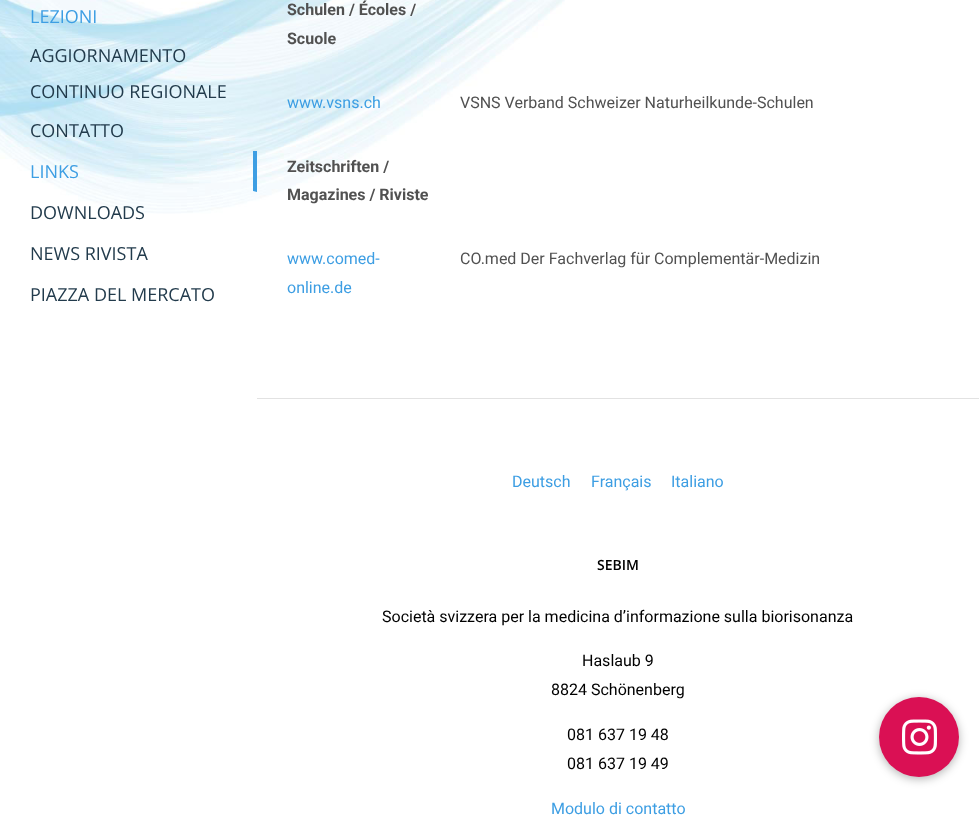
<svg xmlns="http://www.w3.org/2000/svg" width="979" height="817">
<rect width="100%" height="100%" fill="#fff"/>
<image x="0" y="0" width="565" height="214" href="media/1.png"/>
<text x="30" y="23" style="font-family:Open Sans;font-size:18px;fill:#3d9ee3">LEZIONI</text>
<text x="30" y="62" style="font-family:Open Sans;font-size:18px;fill:#223b4c">AGGIORNAMENTO</text>
<text x="30" y="98" style="font-family:Open Sans;font-size:18px;fill:#223b4c">CONTINUO REGIONALE</text>
<text x="30" y="137" style="font-family:Open Sans;font-size:18px;fill:#223b4c">CONTATTO</text>
<path d="M257 151v41l-4-1v-40z" fill="#3d9ee3"/>
<text x="30" y="178" style="font-family:Open Sans;font-size:18px;fill:#3d9ee3">LINKS</text>
<text x="30" y="219" style="font-family:Open Sans;font-size:18px;fill:#223b4c">DOWNLOADS</text>
<text x="30" y="260" style="font-family:Open Sans;font-size:18px;fill:#223b4c">NEWS RIVISTA</text>
<text x="30" y="301" style="font-family:Open Sans;font-size:18px;fill:#223b4c">PIAZZA DEL MERCATO</text>
<text x="287" y="15" style="font-family:Roboto;font-size:16px;font-weight:bold;fill:#515151">Schulen / Écoles /</text>
<text x="287" y="44" style="font-family:Roboto;font-size:16px;font-weight:bold;fill:#515151">Scuole</text>
<text x="287" y="108" style="font-family:Roboto;font-size:16px;fill:#3d9ee3">www.vsns.ch</text>
<text x="460" y="108" style="font-family:Roboto;font-size:16px;fill:#515151">VSNS Verband Schweizer Naturheilkunde-Schulen</text>
<text x="287" y="172" style="font-family:Roboto;font-size:16px;font-weight:bold;fill:#515151">Zeitschriften /</text>
<text x="287" y="200" style="font-family:Roboto;font-size:16px;font-weight:bold;fill:#515151">Magazines / Riviste</text>
<text x="287" y="264" style="font-family:Roboto;font-size:16px;fill:#3d9ee3">www.comed-</text>
<text x="287" y="293" style="font-family:Roboto;font-size:16px;fill:#3d9ee3">online.de</text>
<text x="460" y="264" style="font-family:Roboto;font-size:16px;fill:#515151">CO.med Der Fachverlag für Complementär-Medizin</text>
<rect x="257" y="398" width="722" height="1" fill="#e2e2e2"/>
<text x="512" y="487" style="font-family:Roboto;font-size:16px;fill:#3d9ee3">Deutsch</text>
<text x="591" y="487" style="font-family:Roboto;font-size:16px;fill:#3d9ee3">Français</text>
<text x="671" y="487" style="font-family:Roboto;font-size:16px;fill:#3d9ee3">Italiano</text>
<text x="597" y="570" style="font-family:Open Sans;font-size:14px;font-weight:600;fill:#000">SEBIM</text>
<text x="382" y="622" style="font-family:Roboto;font-size:16px;fill:#000">Società svizzera per la medicina d’informazione sulla biorisonanza</text>
<text x="582" y="666" style="font-family:Roboto;font-size:16px;fill:#000">Haslaub 9</text>
<text x="551" y="695" style="font-family:Roboto;font-size:16px;fill:#000">8824 Schönenberg</text>
<text x="567" y="740" style="font-family:Roboto;font-size:16px;fill:#000">081 637 19 48</text>
<text x="567" y="769" style="font-family:Roboto;font-size:16px;fill:#000">081 637 19 49</text>
<text x="551" y="814" style="font-family:Roboto;font-size:16px;fill:#3d9ee3">Modulo di contatto</text>
<rect x="879" y="699" width="80" height="80" rx="40" fill="#0000004d" filter="blur(5px)"/>
<circle cx="919" cy="737" r="40" fill="#da1054"/>
<image x="902" y="719" width="35" height="36" href="media/2.png"/>
</svg>
